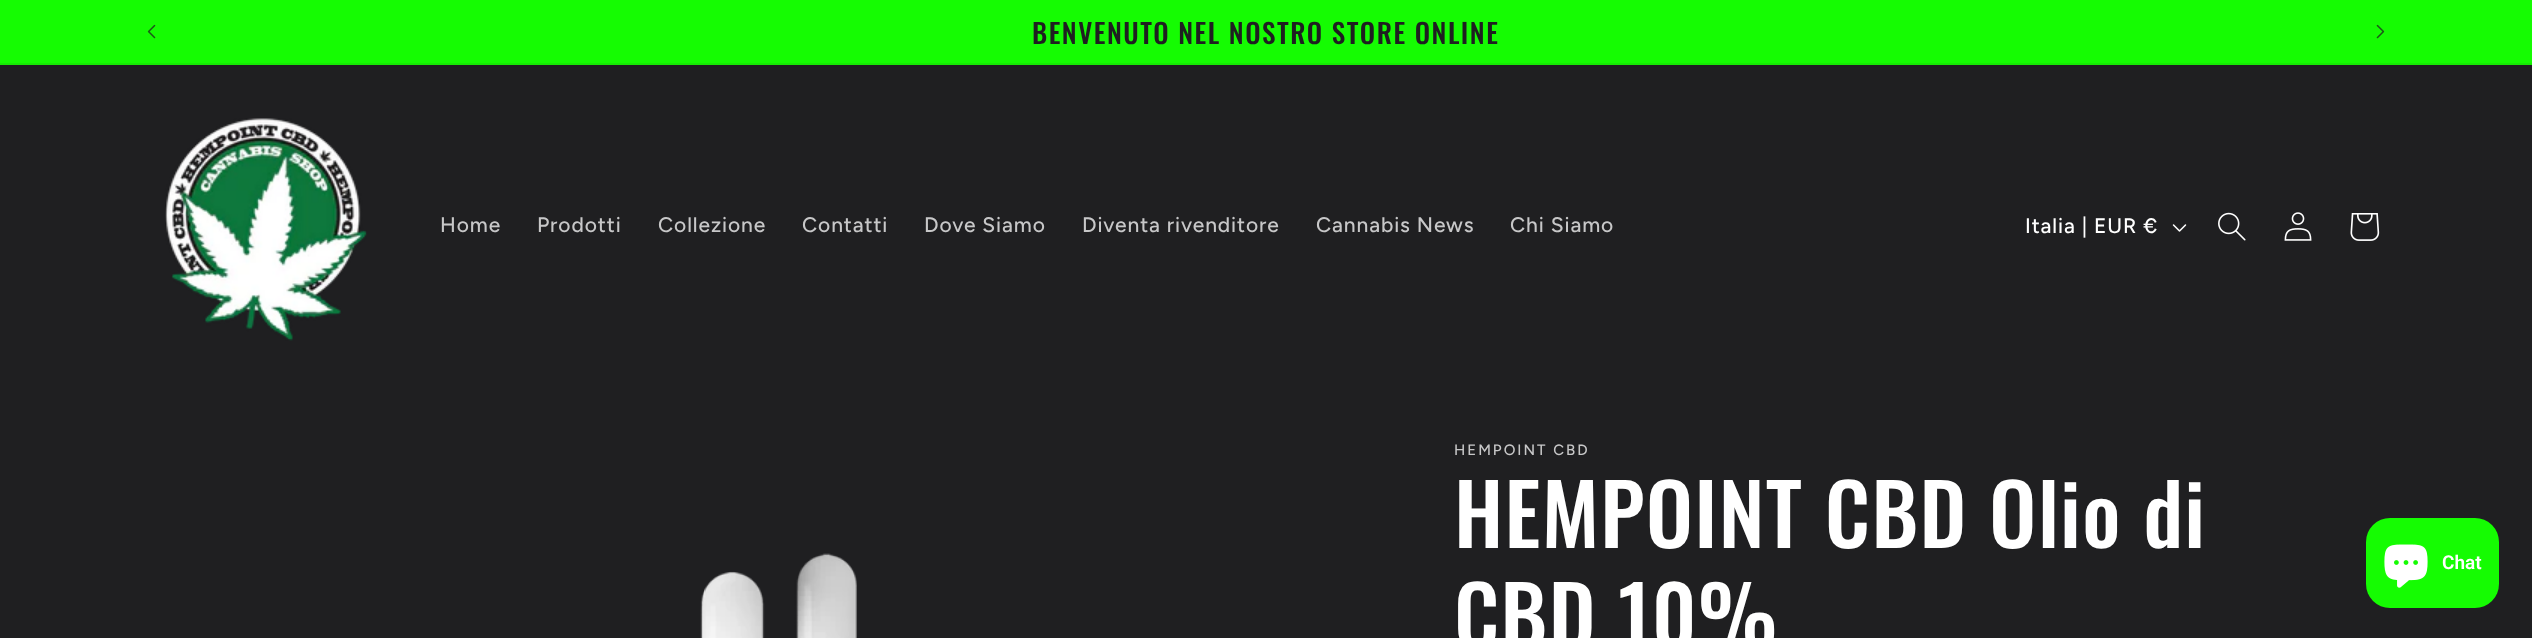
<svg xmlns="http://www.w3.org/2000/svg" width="2532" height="638">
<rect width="100%" height="100%" fill="#1f1f21"/>
<rect width="2532" height="63" fill="#15fc02"/>
<rect y="63" width="2532" height="2" fill="#16ea04"/>
<image x="147" y="24" width="9" height="15" href="media/1.png"/>
<text x="1032" y="44" style="font-family:Oswald;font-size:27.25px;font-weight:500;letter-spacing:1.5px;fill:#1f1f21">BENVENUTO NEL NOSTRO STORE ONLINE</text>
<image x="2376" y="24" width="9" height="15" href="media/2.png"/>
<image x="165" y="118" width="202" height="223" href="media/3.png"/>
<text x="440" y="232" style="font-family:Figtree;font-size:21px;font-weight:500;letter-spacing:0.9px;fill:#c7c7c8">Home</text>
<text x="537" y="232" style="font-family:Figtree;font-size:21px;font-weight:500;letter-spacing:0.9px;fill:#c7c7c8">Prodotti</text>
<text x="658" y="232" style="font-family:Figtree;font-size:21px;font-weight:500;letter-spacing:0.9px;fill:#c7c7c8">Collezione</text>
<text x="802" y="232" style="font-family:Figtree;font-size:21px;font-weight:500;letter-spacing:0.9px;fill:#c7c7c8">Contatti</text>
<text x="924" y="232" style="font-family:Figtree;font-size:21px;font-weight:500;letter-spacing:0.9px;fill:#c7c7c8">Dove Siamo</text>
<text x="1082" y="232" style="font-family:Figtree;font-size:21px;font-weight:500;letter-spacing:0.9px;fill:#c7c7c8">Diventa rivenditore</text>
<text x="1316" y="232" style="font-family:Figtree;font-size:21px;font-weight:500;letter-spacing:0.9px;fill:#c7c7c8">Cannabis News</text>
<text x="1510" y="232" style="font-family:Figtree;font-size:21px;font-weight:500;letter-spacing:0.9px;fill:#c7c7c8">Chi Siamo</text>
<text x="2025" y="233" style="font-family:Figtree;font-size:21px;font-weight:500;letter-spacing:0.9px;fill:#fff">Italia | EUR €</text>
<image x="2172" y="224" width="15" height="8" href="media/4.png"/>
<image x="2218" y="212" width="28" height="29" href="media/5.png"/>
<image x="2284" y="212" width="28" height="29" href="media/6.png"/>
<image x="2350" y="213" width="30" height="28" href="media/7.png"/>
<image x="700" y="553" width="157" height="85" href="media/8.png"/>
<text x="1454" y="455" style="font-family:Figtree;font-size:15px;font-weight:500;letter-spacing:2px;fill:#c7c7c8">HEMPOINT CBD</text>
<text x="1454" y="548" style="font-family:Oswald;font-size:84px;font-weight:500;letter-spacing:1.25px;fill:#fff">HEMPOINT CBD Olio di</text>
<text x="1454" y="650" style="font-family:Oswald;font-size:84px;font-weight:500;letter-spacing:1.25px;fill:#fff">CBD 10%</text>
<rect x="2366" y="518" width="133" height="90" rx="24" fill="#15fc02"/>
<image x="2384" y="544" width="44" height="44" href="media/9.png"/>
<text x="2442" y="569" style="font-family:Roboto;font-size:19px;font-weight:600;fill:#fff">Chat</text>
</svg>
